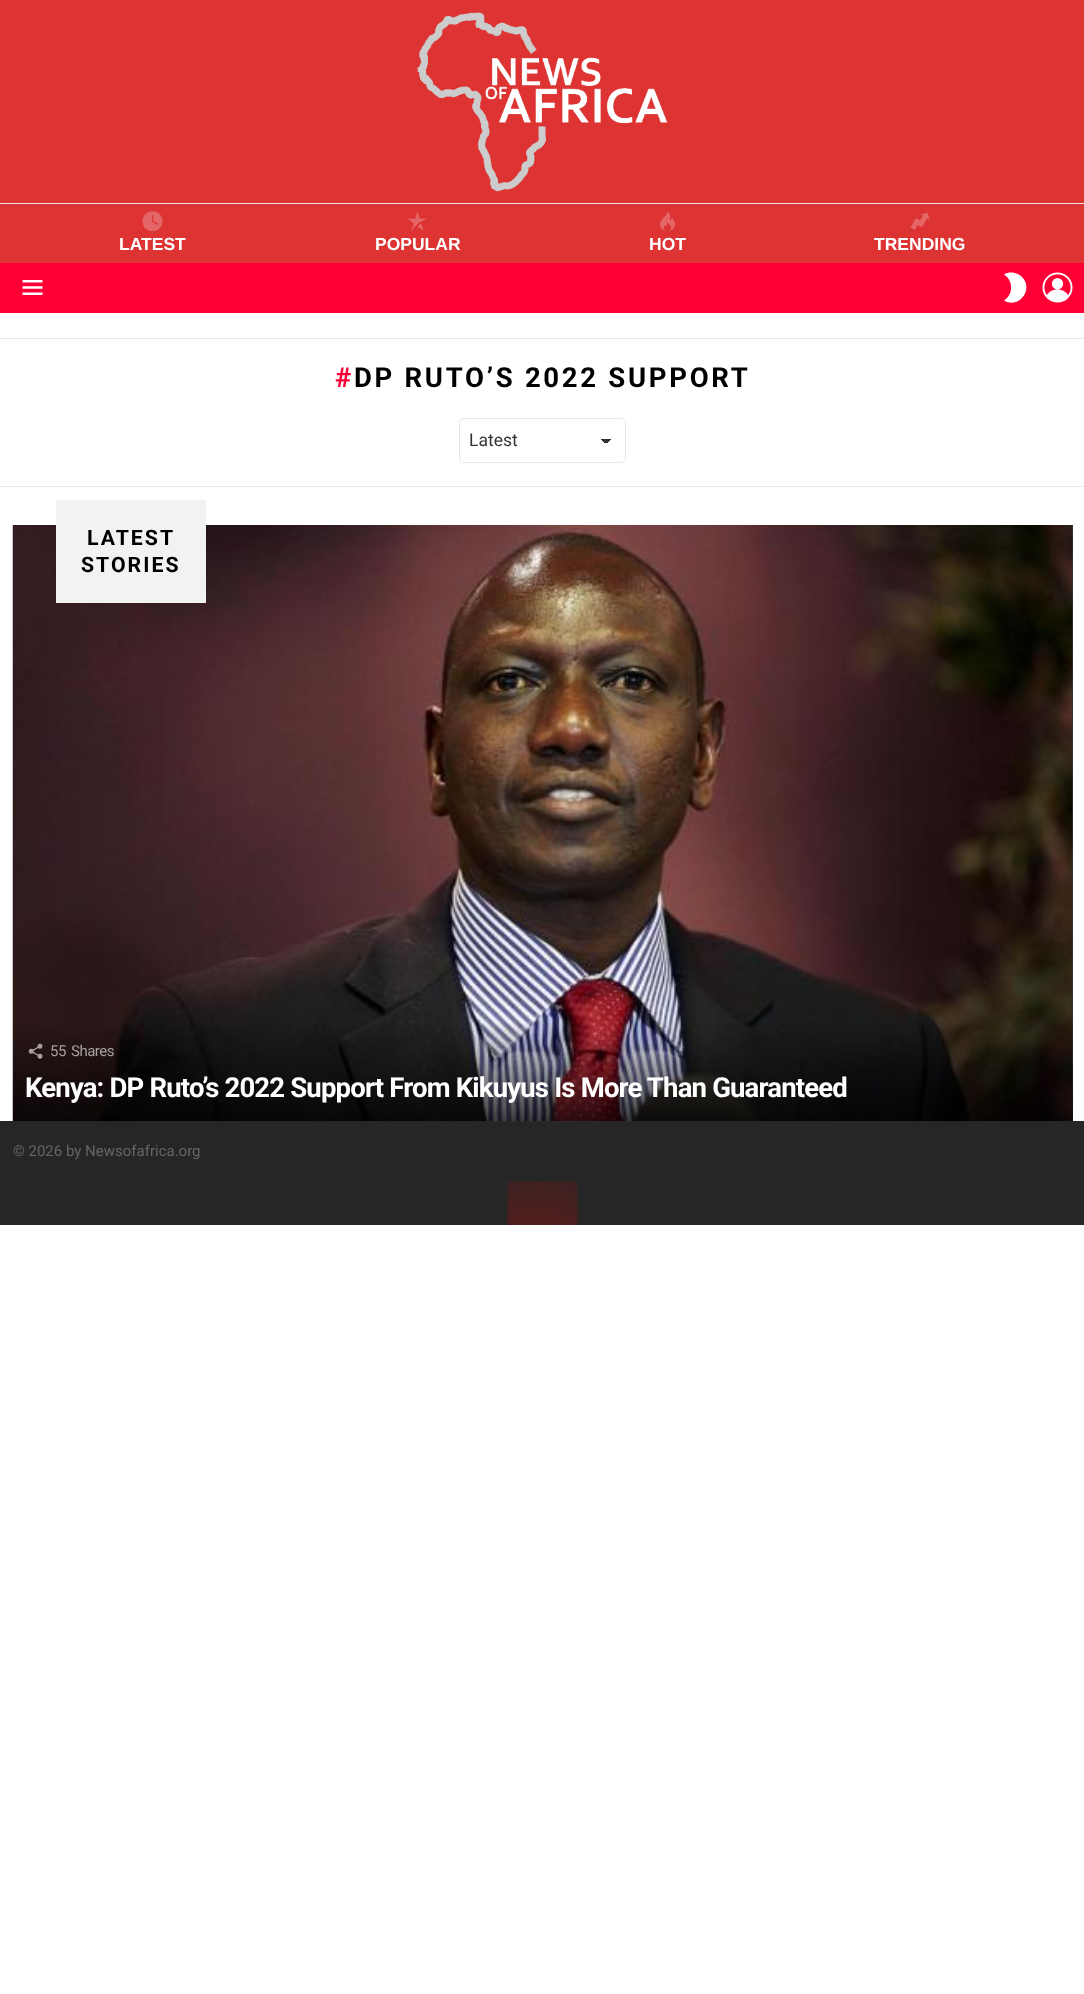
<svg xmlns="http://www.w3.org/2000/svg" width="1084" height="1994">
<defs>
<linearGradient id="g1" gradientUnits="userSpaceOnUse" x1="607" y1="438" x2="612" y2="444"><stop offset="0.5" stop-color="#333"/><stop offset="0.5" stop-color="#fff"/></linearGradient>
<linearGradient id="g2" gradientUnits="userSpaceOnUse" x1="600" y1="444" x2="606" y2="438"><stop offset="0.5" stop-color="#fff"/><stop offset="0.5" stop-color="#333"/></linearGradient>
<linearGradient id="g3" gradientUnits="userSpaceOnUse" x1="543" y1="1020" x2="543" y2="1121"><stop offset="0" stop-color="#000" stop-opacity="0"/><stop offset="1" stop-color="#000" stop-opacity="0.75"/></linearGradient>
</defs>
<rect width="100%" height="100%" fill="#fff"/>
<rect width="1084" height="203" fill="#d33"/>
<rect y="203" width="1084" height="1" fill="#e6e6e6"/>
<image x="417" y="12" width="251" height="180" href="media/1.png"/>
<rect y="204" width="1084" height="59" fill="#d33"/>
<image x="142" y="211" width="21" height="21" href="media/2.png"/>
<text x="119" y="250" style="font-family:Liberation Sans;font-size:17.5px;font-weight:bold;fill:#fff">LATEST</text>
<image x="407" y="211" width="20" height="20" href="media/3.png"/>
<text x="375" y="250" style="font-family:Liberation Sans;font-size:17.5px;font-weight:bold;fill:#fff">POPULAR</text>
<image x="660" y="211" width="15" height="20" href="media/4.png"/>
<text x="649" y="250" style="font-family:Liberation Sans;font-size:17.5px;font-weight:bold;fill:#fff">HOT</text>
<image x="910" y="212" width="20" height="18" href="media/5.png"/>
<text x="874" y="250" style="font-family:Liberation Sans;font-size:17.5px;font-weight:bold;fill:#fff">TRENDING</text>
<rect y="263" width="1084" height="50" fill="#ff0036"/>
<image x="22" y="280" width="21" height="15" href="media/6.png"/>
<path d="M1011 272.5c-2.5 0-5 .5-7 2c9.5 6 9.5 20 0 26c15 9 30.5-12 17.5-24c-3-2.5-6.5-4-10.5-4z" fill="#fff"/>
<image x="1042" y="272" width="31" height="31" href="media/7.png"/>
<rect y="338" width="1084" height="1" fill="#e6e6e6"/>
<text x="335" y="387" style="font-family:Roboto;font-size:27.5px;font-weight:bold;letter-spacing:2.7px;fill:#ff0036">#</text>
<text x="354" y="387" style="font-family:Roboto;font-size:27.5px;font-weight:bold;letter-spacing:2.7px;fill:#000">DP RUTO’S 2022 SUPPORT</text>
<rect x="606" y="439" width="7" height="4" fill="url(#g1)"/>
<rect x="600" y="439" width="6" height="4" fill="url(#g2)"/>
<rect x="459.5" y="418.5" width="166" height="44" rx="4.5" fill="none" stroke="#e6e6e6"/>
<text x="469" y="446" style="font-family:Roboto;font-size:17.5px;fill:#333">Latest</text>
<rect y="486" width="1084" height="1" fill="#e6e6e6"/>
<rect x="1072" y="525" width="1" height="596" fill="#333"/>
<rect y="1121" width="1084" height="104" fill="#262626"/>
<image x="12" y="525" width="1061" height="597" href="media/8.png"/>
<rect x="56" y="500" width="150" height="103" fill="#f2f2f2"/>
<text x="87" y="545" style="font-family:Roboto;font-size:21.25px;font-weight:bold;letter-spacing:2px;fill:#000">LATEST</text>
<text x="81" y="572" style="font-family:Roboto;font-size:21.25px;font-weight:bold;letter-spacing:2px;fill:#000">STORIES</text>
<rect x="13" y="1023" width="1060" height="98" fill="url(#g3)"/>
<image x="28" y="1043" width="15" height="16" href="media/9.png"/>
<text x="50" y="1056" style="font-family:Roboto;font-size:15px;letter-spacing:-0.5px;fill:#a6a0a0">55</text>
<text x="71" y="1056" style="font-family:Roboto;font-size:15px;letter-spacing:-0.5px;fill:#a6a0a0">Shares</text>
<text x="25" y="1097" style="font-family:Roboto;font-size:27.5px;font-weight:bold;letter-spacing:-0.83px;fill:#fff">Kenya: DP Ruto’s 2022 Support From Kikuyus Is More Than Guaranteed</text>
<text x="13" y="1156" style="font-family:Roboto;font-size:15px;fill:#666">© 2026 by Newsofafrica.org</text>
<image x="507" y="1181" width="71" height="44" href="media/10.png"/>
</svg>
